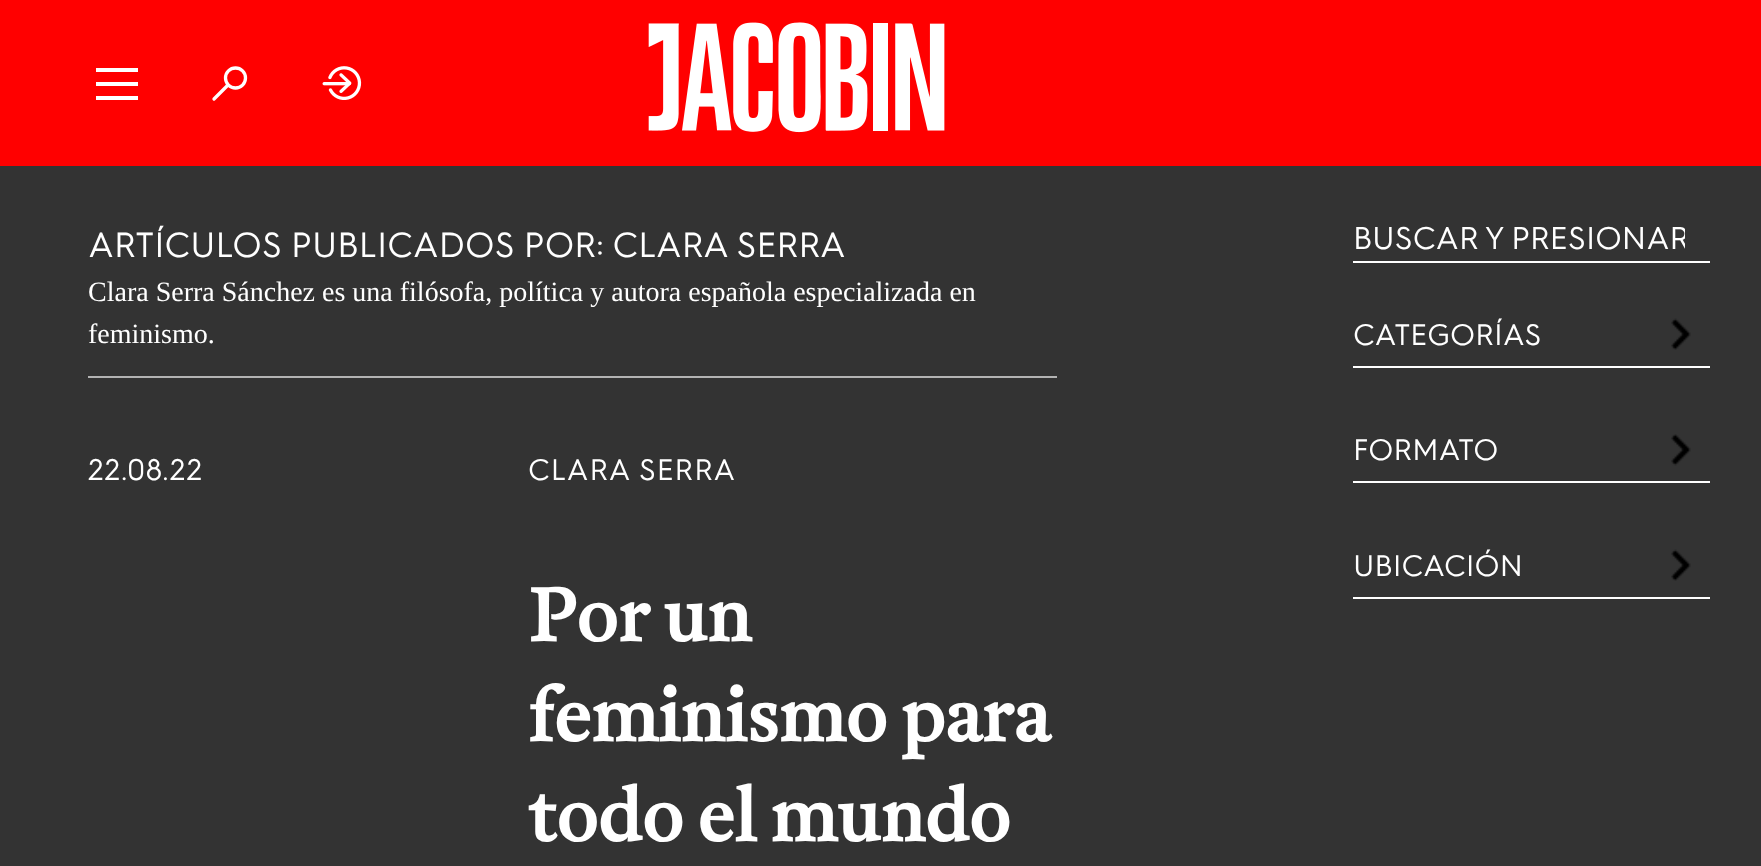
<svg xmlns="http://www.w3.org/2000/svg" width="1761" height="866">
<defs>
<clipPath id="clip1"><rect x="1353" y="221" width="332" height="36"/></clipPath>
</defs>
<rect width="100%" height="100%" fill="#333"/>
<rect width="1761" height="166" fill="#f00"/>
<rect x="96" y="68" width="42" height="4" fill="#fff"/>
<rect x="96" y="82" width="42" height="4" fill="#fff"/>
<rect x="96" y="96" width="42" height="4" fill="#fff"/>
<circle cx="235.5" cy="78" r="10" fill="none" stroke="#fff" stroke-width="3.3"/>
<path d="M228 85l-14 14" fill="none" stroke="#fff" stroke-width="3.3" stroke-linecap="round" stroke-linejoin="round"/>
<image x="322" y="66" width="40" height="34" href="media/1.png"/>
<image x="648" y="22" width="297" height="111" href="media/2.png"/>
<rect x="88" y="376" width="969" height="2" fill="#b3b3b3"/>
<text x="88" y="257" style="font-family:'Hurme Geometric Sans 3';font-size:35px;fill:#fff">ARTÍCULOS PUBLICADOS POR: CLARA SERRA</text>
<text x="88" y="301" style="font-family:Liberation Serif;font-size:28px;fill:#fff">Clara Serra Sánchez es una filósofa, política y autora española especializada en</text>
<text x="88" y="343" style="font-family:Liberation Serif;font-size:28px;fill:#fff">feminismo.</text>
<text x="88" y="480" style="font-family:'Hurme Geometric Sans 3';font-size:29.75px;letter-spacing:0.9px;fill:#fff">22.08.22</text>
<text x="528" y="480" style="font-family:'Hurme Geometric Sans 3';font-size:29.75px;letter-spacing:0.9px;fill:#fff">CLARA SERRA</text>
<text x="528" y="641" style="font-family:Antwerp;font-size:73.5px;font-weight:bold;fill:#fff">Por un</text>
<text x="528" y="741" style="font-family:Antwerp;font-size:73.5px;font-weight:bold;fill:#fff">feminismo para</text>
<text x="528" y="841" style="font-family:Antwerp;font-size:73.5px;font-weight:bold;fill:#fff">todo el mundo</text>
<rect x="1353" y="261" width="357" height="2" fill="#fff"/>
<g clip-path="url(#clip1)">
<text x="1353" y="249" style="font-family:'Hurme Geometric Sans 3';font-size:31.5px;fill:#fff">BUSCAR Y PRESIONAR</text>
</g>
<rect x="1353" y="366" width="357" height="2" fill="#fff"/>
<text x="1353" y="345" style="font-family:'Hurme Geometric Sans 3';font-size:29.75px;fill:#fff">CATEGORÍAS</text>
<image x="1671" y="318" width="20" height="32" href="media/3.png"/>
<rect x="1353" y="481" width="357" height="2" fill="#fff"/>
<text x="1353" y="460" style="font-family:'Hurme Geometric Sans 3';font-size:29.75px;fill:#fff">FORMATO</text>
<image x="1671" y="434" width="20" height="32" href="media/4.png"/>
<rect x="1353" y="597" width="357" height="2" fill="#fff"/>
<text x="1353" y="576" style="font-family:'Hurme Geometric Sans 3';font-size:29.75px;fill:#fff">UBICACIÓN</text>
<image x="1671" y="549" width="20" height="32" href="media/3.png"/>
</svg>
